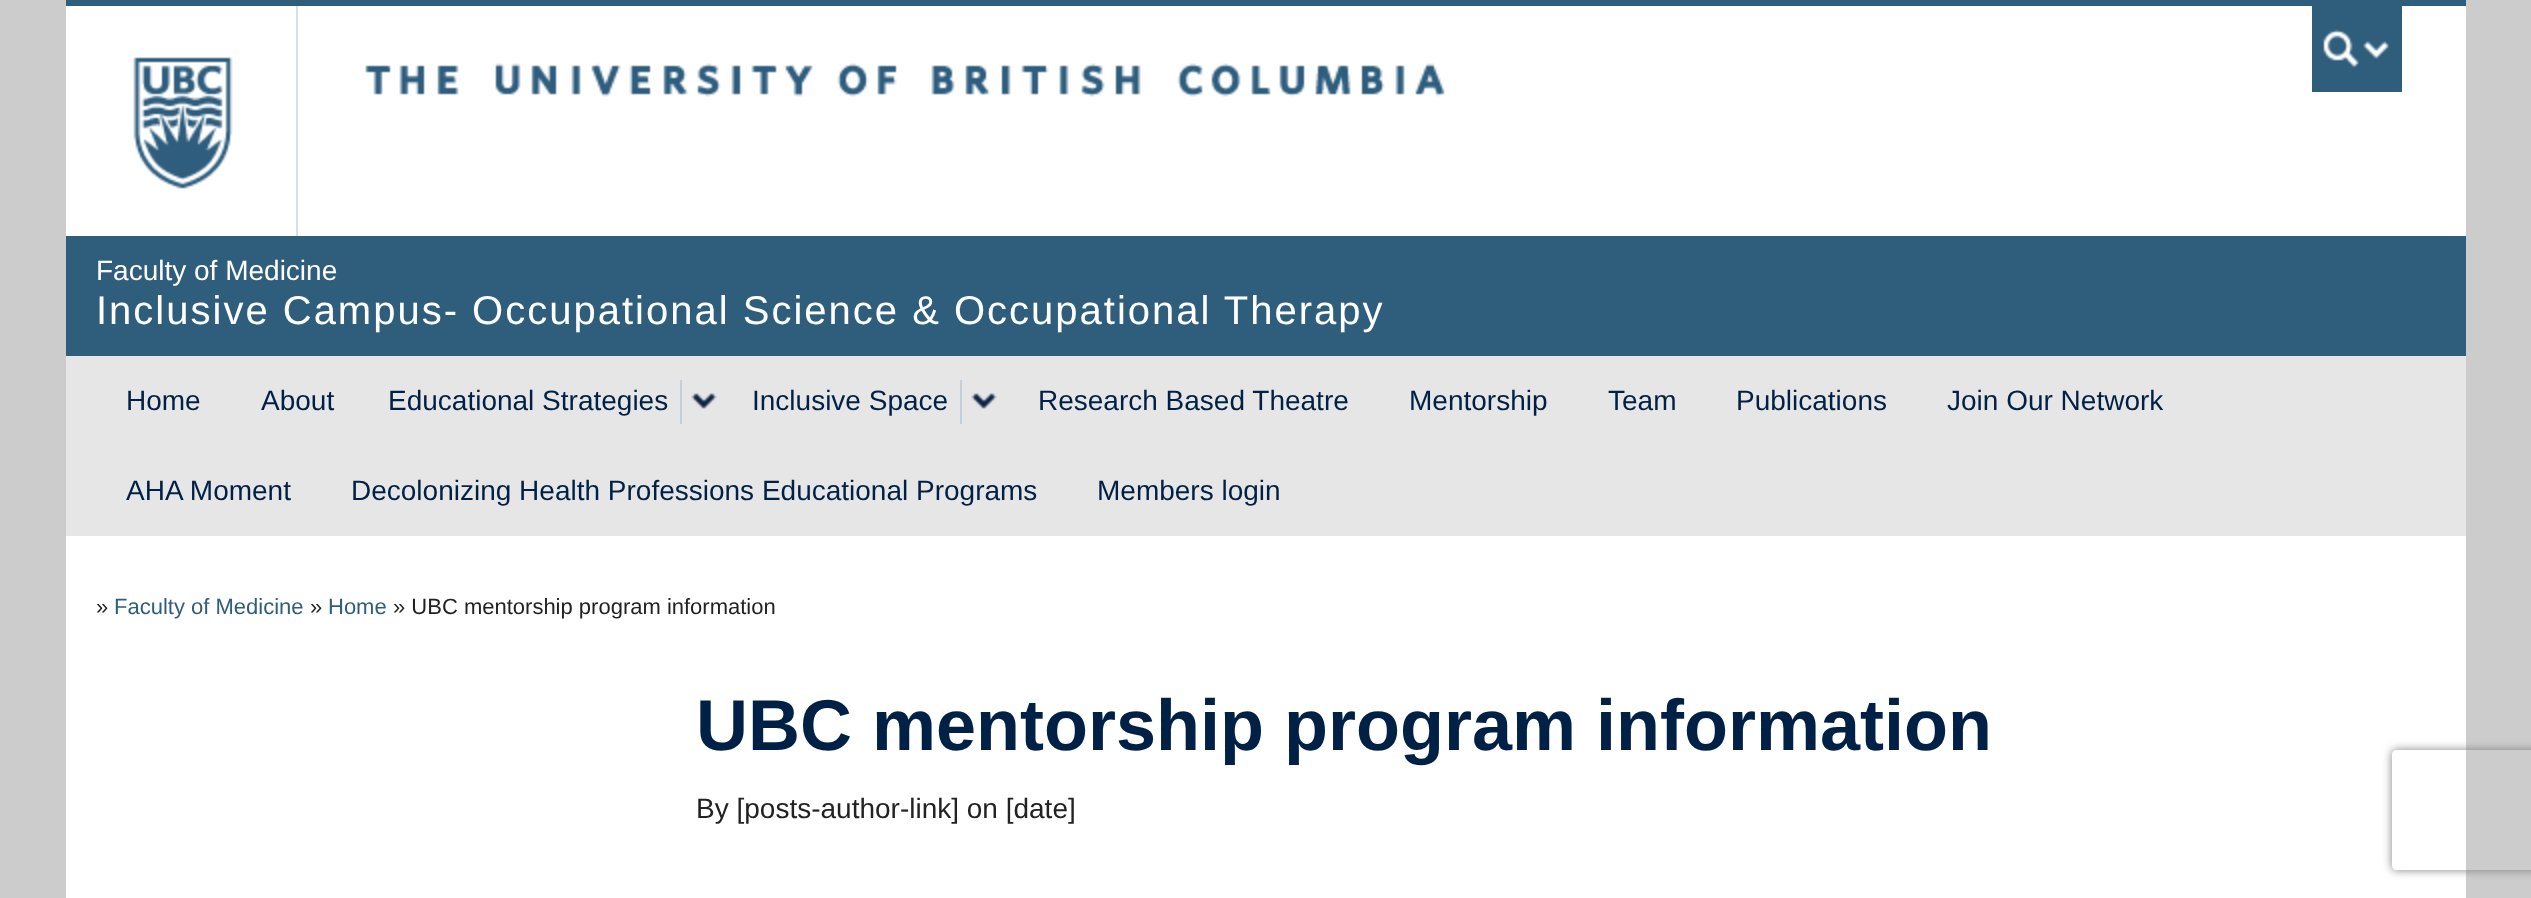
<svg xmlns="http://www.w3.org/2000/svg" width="2531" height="898">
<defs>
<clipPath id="clip1"><path d="M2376 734h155v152h-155zm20 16h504c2 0 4 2 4 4v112c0 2-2 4-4 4h-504c-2 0-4-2-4-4v-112c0-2 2-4 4-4z" clip-rule="evenodd"/></clipPath>
</defs>
<rect width="100%" height="100%" fill="#ccc"/>
<rect x="66" y="6" width="2400" height="230" fill="#fff"/>
<rect x="66" width="2400" height="6" fill="#2f5d7c"/>
<image x="133" y="57" width="100" height="132" href="media/1.png"/>
<image x="365" y="63" width="1080" height="34" href="media/2.png"/>
<rect x="296" y="6" width="2" height="230" fill="#d7e0e7"/>
<rect x="2312" y="6" width="90" height="86" fill="#2f5d7c"/>
<image x="2323" y="29" width="66" height="39" href="media/3.png"/>
<rect x="66" y="236" width="2400" height="120" fill="#2f5d7c"/>
<text x="96" y="280" style="font-family:Liberation Sans;font-size:28px;fill:#fff">Faculty of Medicine</text>
<text x="96" y="324" style="font-family:Liberation Sans;font-size:40px;letter-spacing:2px;fill:#fff">Inclusive Campus- Occupational Science &amp; Occupational Therapy</text>
<rect x="66" y="356" width="2400" height="180" fill="#e6e6e6"/>
<text x="126" y="410" style="font-family:Liberation Sans;font-size:28px;fill:#002145">Home</text>
<text x="261" y="410" style="font-family:Liberation Sans;font-size:28px;fill:#002145">About</text>
<text x="388" y="410" style="font-family:Liberation Sans;font-size:28px;fill:#002145">Educational Strategies</text>
<rect x="680" y="380" width="2" height="44" fill="#c3d0db"/>
<image x="691" y="393" width="26" height="16" href="media/4.png"/>
<text x="752" y="410" style="font-family:Liberation Sans;font-size:28px;fill:#002145">Inclusive Space</text>
<rect x="960" y="380" width="2" height="44" fill="#c3d0db"/>
<image x="971" y="393" width="26" height="16" href="media/4.png"/>
<text x="1038" y="410" style="font-family:Liberation Sans;font-size:28px;fill:#002145">Research Based Theatre</text>
<text x="1409" y="410" style="font-family:Liberation Sans;font-size:28px;fill:#002145">Mentorship</text>
<text x="1608" y="410" style="font-family:Liberation Sans;font-size:28px;fill:#002145">Team</text>
<text x="1736" y="410" style="font-family:Liberation Sans;font-size:28px;fill:#002145">Publications</text>
<text x="1947" y="410" style="font-family:Liberation Sans;font-size:28px;fill:#002145">Join Our Network</text>
<text x="126" y="500" style="font-family:Liberation Sans;font-size:28px;fill:#002145">AHA Moment</text>
<text x="351" y="500" style="font-family:Liberation Sans;font-size:28px;fill:#002145">Decolonizing Health Professions Educational Programs</text>
<text x="1097" y="500" style="font-family:Liberation Sans;font-size:28px;fill:#002145">Members login</text>
<rect x="66" y="536" width="2400" height="362" fill="#fff"/>
<text x="96" y="614" style="font-family:Liberation Sans;font-size:22px;fill:#222">»</text>
<text x="114" y="614" style="font-family:Liberation Sans;font-size:22px;fill:#2f5d7c">Faculty of Medicine</text>
<text x="310" y="614" style="font-family:Liberation Sans;font-size:22px;fill:#222">»</text>
<text x="328" y="614" style="font-family:Liberation Sans;font-size:22px;fill:#2f5d7c">Home</text>
<text x="393" y="614" style="font-family:Liberation Sans;font-size:22px;fill:#222">» UBC mentorship program information</text>
<text x="696" y="750" style="font-family:Liberation Sans;font-size:72px;font-weight:bold;fill:#002145">UBC mentorship program information</text>
<text x="696" y="818" style="font-family:Liberation Sans;font-size:28px;fill:#222">By [posts-author-link] on [date]</text>
<g clip-path="url(#clip1)">
<rect x="2392" y="750" width="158" height="120" rx="4" fill="#808080" filter="blur(5px)"/>
</g>
</svg>
